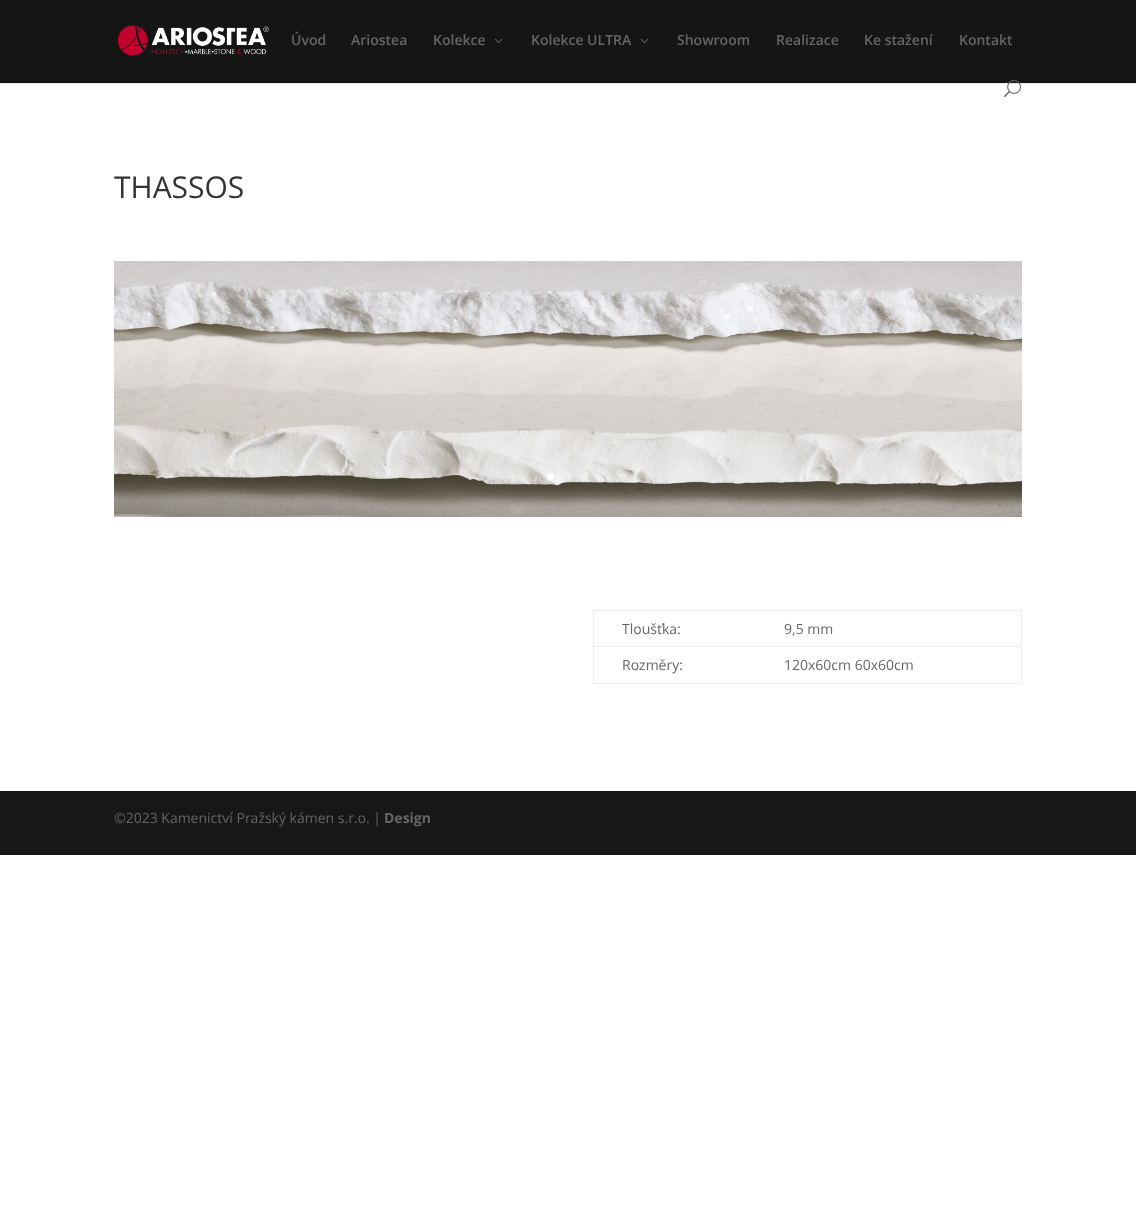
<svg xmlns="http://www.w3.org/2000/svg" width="1136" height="1230">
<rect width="100%" height="100%" fill="#fff"/>
<rect y="83" width="1136" height="1" fill="#e6e6e6"/>
<rect width="1136" height="83" fill="#151515"/>
<image x="118" y="25" width="151" height="31" href="media/1.png"/>
<text x="291" y="45" style="font-family:Open Sans;font-size:14px;font-weight:600;fill:#666">Úvod</text>
<text x="351" y="45" style="font-family:Open Sans;font-size:14px;font-weight:600;fill:#666">Ariostea</text>
<text x="433" y="45" style="font-family:Open Sans;font-size:14px;font-weight:600;fill:#666">Kolekce</text>
<image x="494" y="38" width="9" height="5" href="media/2.png"/>
<text x="531" y="45" style="font-family:Open Sans;font-size:14px;font-weight:600;fill:#666">Kolekce ULTRA</text>
<image x="640" y="38" width="9" height="5" href="media/2.png"/>
<text x="677" y="45" style="font-family:Open Sans;font-size:14px;font-weight:600;fill:#666">Showroom</text>
<text x="776" y="45" style="font-family:Open Sans;font-size:14px;font-weight:600;fill:#666">Realizace</text>
<text x="864" y="45" style="font-family:Open Sans;font-size:14px;font-weight:600;fill:#666">Ke stažení</text>
<text x="959" y="45" style="font-family:Open Sans;font-size:14px;font-weight:600;fill:#666">Kontakt</text>
<image x="1004" y="80" width="17" height="18" href="media/3.png"/>
<text x="114" y="198" style="font-family:Open Sans;font-size:30px;fill:#333">THASSOS</text>
<image x="114" y="261" width="908" height="256" href="media/4.png"/>
<circle cx="550.5" cy="476.5" r="3.5" fill="#fff"/>
<circle cx="567.5" cy="476.5" r="3.5" fill="#ffffff40"/>
<circle cx="584.5" cy="476.5" r="3.5" fill="#ffffff40"/>
<rect x="593" y="610" width="429" height="1" fill="#eee"/>
<rect x="1021" y="610" width="1" height="74" fill="#eee"/>
<rect x="593" y="683" width="429" height="1" fill="#eee"/>
<rect x="593" y="610" width="1" height="74" fill="#eee"/>
<text x="622" y="634" style="font-family:Open Sans;font-size:14px;fill:#666">Tloušťka:</text>
<text x="784" y="634" style="font-family:Open Sans;font-size:14px;fill:#666">9,5 mm</text>
<text x="622" y="670" style="font-family:Open Sans;font-size:14px;fill:#666">Rozměry:</text>
<rect x="593" y="646" width="429" height="1" fill="#eee"/>
<text x="784" y="670" style="font-family:Open Sans;font-size:14px;fill:#666">120x60cm 60x60cm</text>
<rect y="791" width="1136" height="64" fill="#171717"/>
<text x="114" y="823" style="font-family:Open Sans;font-size:14px;fill:#666">©2023 Kamenictví Pražský kámen s.r.o. |</text>
<text x="384" y="823" style="font-family:Open Sans;font-size:14px;font-weight:bold;fill:#666">Design</text>
</svg>
